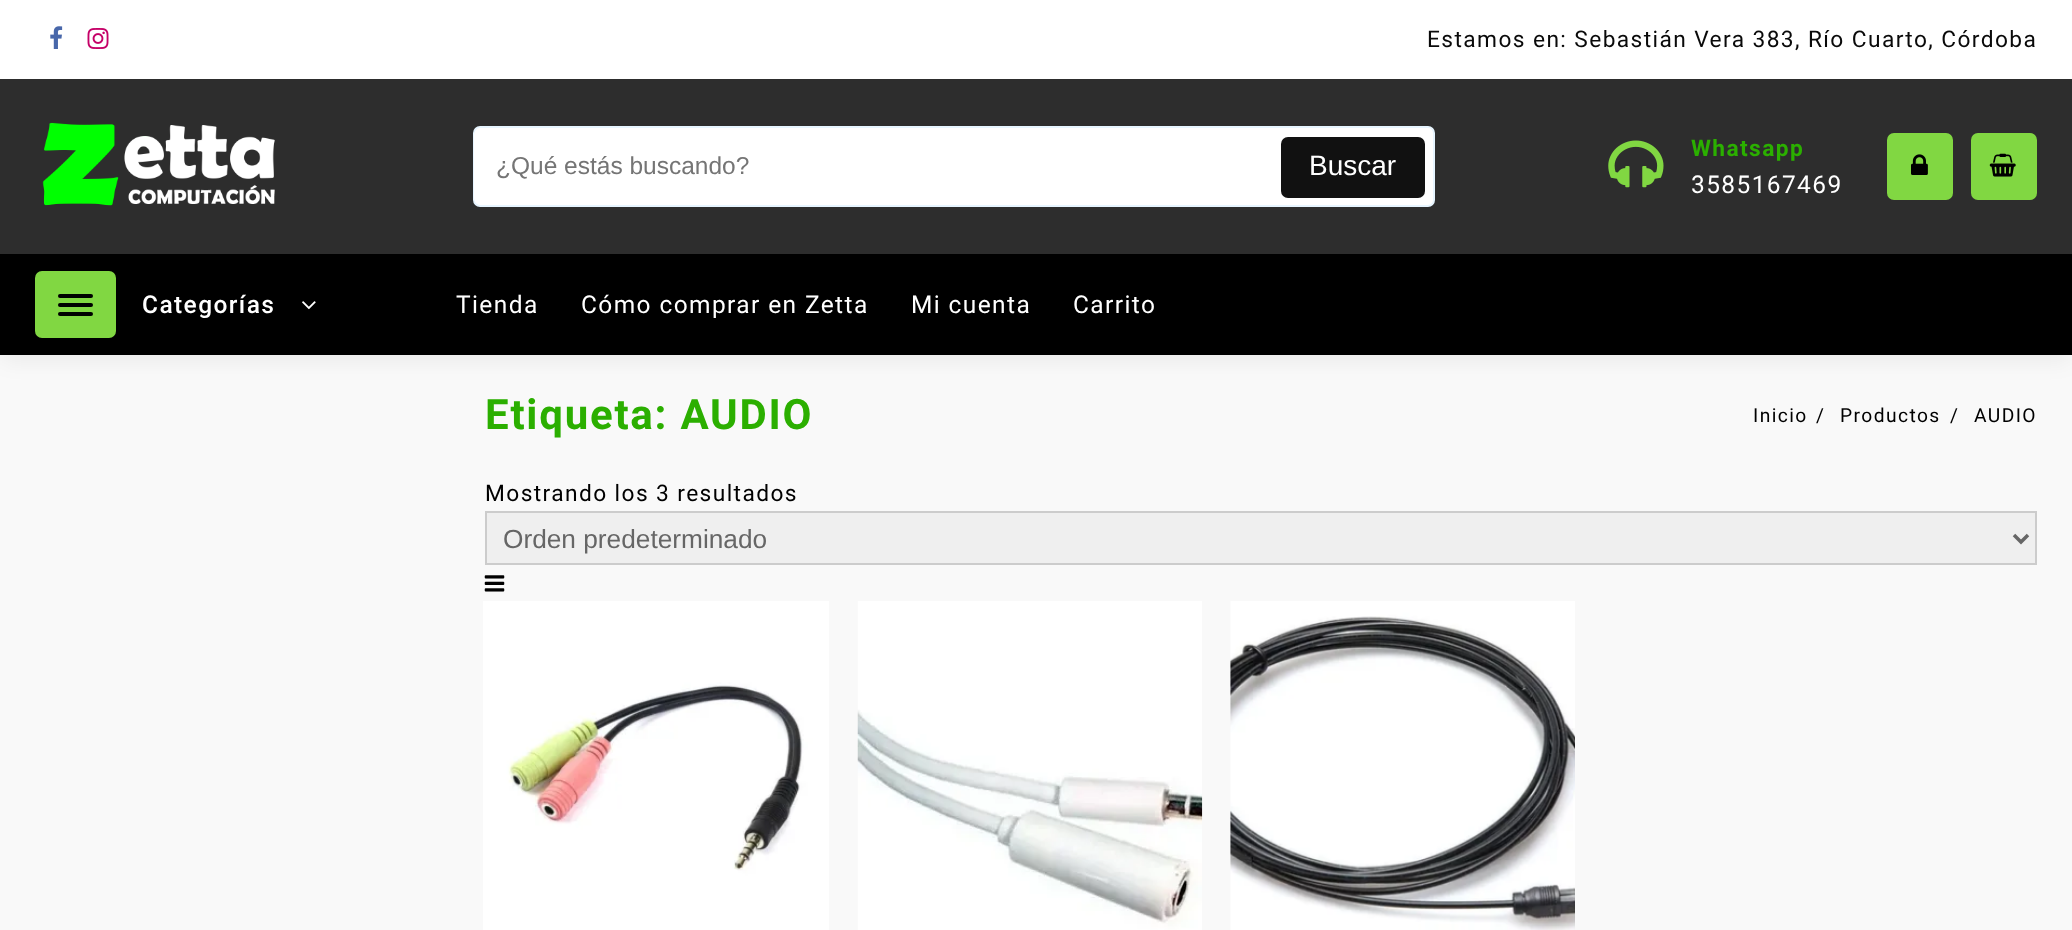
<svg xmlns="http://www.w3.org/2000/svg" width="2072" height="930">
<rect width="100%" height="100%" fill="#f9f9f9"/>
<rect x="2" y="9" width="2068" height="352" fill="#0000000f" filter="blur(10.5px)"/>
<rect width="2072" height="79" fill="#fff"/>
<image x="50" y="26" width="13" height="23" href="media/1.png"/>
<image x="87" y="28" width="22" height="21" href="media/2.png"/>
<text x="1427" y="47" style="font-family:Roboto;font-size:22.75px;letter-spacing:1.4px;fill:#0a0a0a">Estamos en: Sebastián Vera 383, Río Cuarto, Córdoba</text>
<rect y="79" width="2072" height="175" fill="#2d2d2d"/>
<image x="42" y="122" width="233" height="84" href="media/3.png"/>
<rect x="474" y="127" width="960" height="79" rx="6" fill="#fff" stroke="#e7f5ff" stroke-width="2"/>
<rect x="474" y="128" width="798" height="77" rx="7" fill="#fff"/>
<text x="496" y="174" style="font-family:Liberation Sans;font-size:24.5px;fill:#757575">¿Qué estás buscando?</text>
<rect x="1281" y="137" width="144" height="61" rx="7" fill="#111"/>
<text x="1309" y="175" style="font-family:Liberation Sans;font-size:28px;fill:#fff">Buscar</text>
<image x="1608" y="140" width="56" height="48" href="media/4.png"/>
<text x="1691" y="156" style="font-family:Roboto;font-size:22.75px;font-weight:bold;letter-spacing:1.4px;fill:#2baf00">Whatsapp</text>
<text x="1691" y="193" style="font-family:Roboto;font-size:24.5px;letter-spacing:1.4px;fill:#fff">3585167469</text>
<rect x="1887" y="133" width="66" height="67" rx="7" fill="#81d742"/>
<image x="1911" y="154" width="17" height="21" href="media/5.png"/>
<rect x="1971" y="133" width="66" height="67" rx="7" fill="#81d742"/>
<image x="1989" y="153" width="27" height="24" href="media/6.png"/>
<rect y="254" width="2072" height="101" fill="#000"/>
<rect x="35" y="271" width="81" height="67" rx="7" fill="#81d742"/>
<rect x="58" y="294" width="35" height="4" rx="2" fill="#000"/>
<rect x="58" y="303" width="35" height="4" rx="2" fill="#000"/>
<rect x="58" y="312" width="35" height="4" rx="2" fill="#000"/>
<text x="142" y="313" style="font-family:Roboto;font-size:24.5px;font-weight:500;letter-spacing:1.4px;fill:#fff">Categorías</text>
<image x="302" y="301" width="14" height="9" href="media/7.png"/>
<text x="456" y="313" style="font-family:Roboto;font-size:24.5px;letter-spacing:1.4px;fill:#fff">Tienda</text>
<text x="581" y="313" style="font-family:Roboto;font-size:24.5px;letter-spacing:1.4px;fill:#fff">Cómo comprar en Zetta</text>
<text x="911" y="313" style="font-family:Roboto;font-size:24.5px;letter-spacing:1.4px;fill:#fff">Mi cuenta</text>
<text x="1073" y="313" style="font-family:Roboto;font-size:24.5px;letter-spacing:1.4px;fill:#fff">Carrito</text>
<text x="485" y="429" style="font-family:Roboto;font-size:42px;font-weight:bold;letter-spacing:1.75px;fill:#2baf00">Etiqueta: AUDIO</text>
<text x="1753" y="422" style="font-family:Roboto;font-size:19.25px;letter-spacing:1.4px;fill:#000">Inicio</text>
<text x="1816" y="422" style="font-family:Roboto;font-size:19.25px;letter-spacing:1.4px;fill:#000">/</text>
<text x="1840" y="422" style="font-family:Roboto;font-size:19.25px;letter-spacing:1.4px;fill:#000">Productos</text>
<text x="1950" y="422" style="font-family:Roboto;font-size:19.25px;letter-spacing:1.4px;fill:#000">/</text>
<text x="1974" y="422" style="font-family:Roboto;font-size:19.25px;letter-spacing:1.4px;fill:#000">AUDIO</text>
<text x="485" y="501" style="font-family:Roboto;font-size:22.75px;letter-spacing:1.4px;fill:#000">Mostrando los 3 resultados</text>
<rect x="486" y="512" width="1550" height="52" fill="#efefef" stroke="#ccc" stroke-width="2"/>
<path d="M2014 535l7 7l7-7" fill="none" stroke="#666" stroke-width="3.5"/>
<text x="503" y="548" style="font-family:Liberation Sans;font-size:26.25px;fill:#666">Orden predeterminado</text>
<image x="484" y="575" width="21" height="17" href="media/8.png"/>
<image x="483" y="601" width="346" height="329" href="media/9.png"/>
<image x="857" y="601" width="346" height="329" href="media/10.png"/>
<image x="1230" y="601" width="345" height="329" href="media/11.png"/>
</svg>
